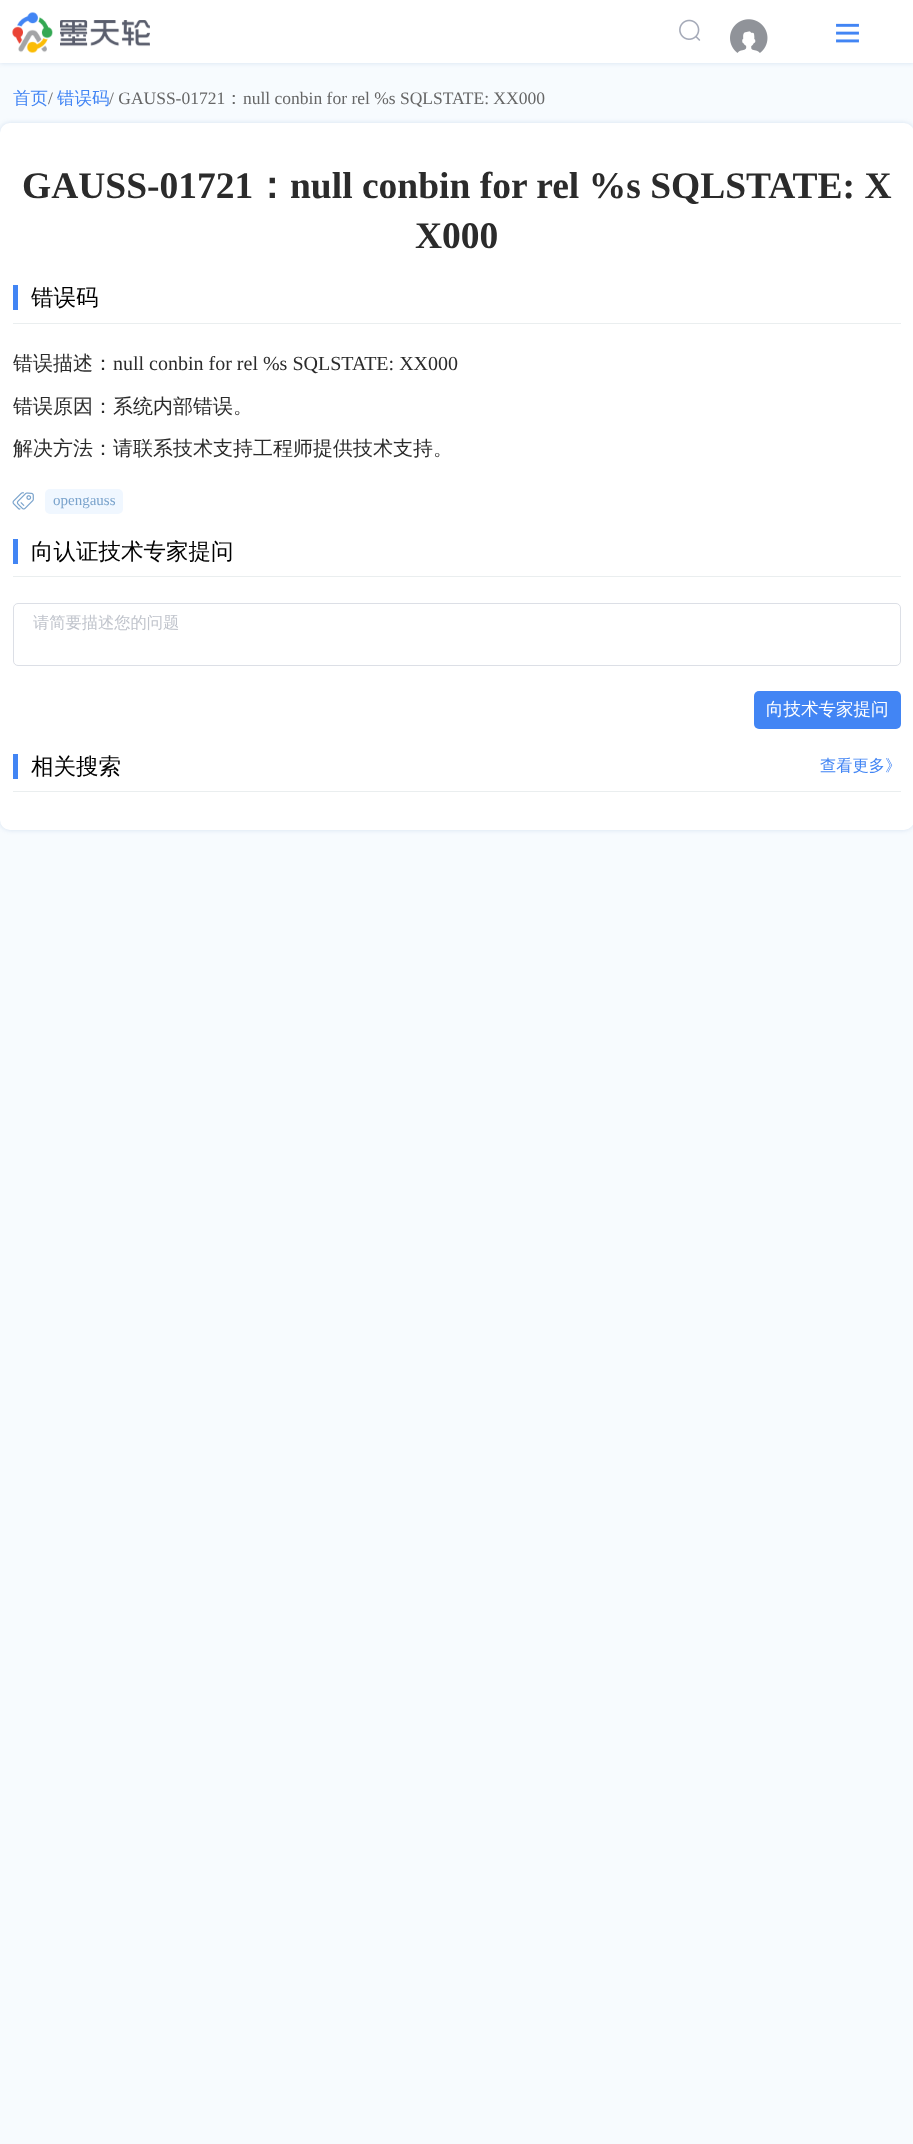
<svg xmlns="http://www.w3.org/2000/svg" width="913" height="2144">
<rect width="100%" height="100%" fill="#f7fbfe"/>
<rect width="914" height="63" fill="#06439924" filter="blur(2.5px)"/>
<rect width="913" height="63" fill="#fff"/>
<image x="12" y="12" width="138" height="41" href="media/1.png"/>
<image x="679" y="19" width="22" height="22" href="media/2.png"/>
<image x="730" y="19" width="38" height="34" href="media/3.png"/>
<image x="836" y="23" width="23" height="20" href="media/4.png"/>
<text x="13" y="104" style="font-family:WenQuanYi Zen Hei;font-size:17.5px;font-weight:500;fill:#4285f4">首页</text>
<text x="48" y="104" style="font-family:Liberation Serif;font-size:17.5px;fill:#666">/</text>
<text x="57" y="104" style="font-family:WenQuanYi Zen Hei;font-size:17.5px;font-weight:500;fill:#4285f4">错误码</text>
<text x="109" y="104" style="font-family:Liberation Serif;font-size:17.5px;fill:#666">/ GAUSS-01721</text>
<text x="225" y="104" style="font-family:WenQuanYi Zen Hei;font-size:17.5px;font-weight:500;fill:#666">：</text>
<text x="243" y="104" style="font-family:Liberation Serif;font-size:17.5px;fill:#666">null conbin for rel %s SQLSTATE: XX000</text>
<rect y="123" width="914" height="707" rx="10" fill="#06439924" filter="blur(2.5px)"/>
<rect y="123" width="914" height="707" rx="10" fill="#fff"/>
<text x="22" y="198" style="font-family:Liberation Serif;font-size:37.5px;font-weight:bold;fill:#2b2b2b">GAUSS-01721</text>
<text x="253" y="198" style="font-family:WenQuanYi Zen Hei;font-size:37.5px;font-weight:bold;fill:#2b2b2b">：</text>
<text x="290" y="198" style="font-family:Liberation Serif;font-size:37.5px;font-weight:bold;fill:#2b2b2b">null conbin for rel %s SQLSTATE: X</text>
<text x="415" y="248" style="font-family:Liberation Serif;font-size:37.5px;font-weight:bold;fill:#2b2b2b">X000</text>
<rect x="13" y="323" width="888" height="1" fill="#eaeeef"/>
<rect x="13" y="285" width="5" height="25" fill="#4285f4"/>
<text x="31" y="305" style="font-family:WenQuanYi Zen Hei;font-size:22.5px;font-weight:500;fill:#000">错误码</text>
<text x="13" y="370" style="font-family:WenQuanYi Zen Hei;font-size:20px;font-weight:500;fill:#2b2b2b">错误描述：</text>
<text x="113" y="370" style="font-family:Liberation Serif;font-size:20px;fill:#2b2b2b">null conbin for rel %s SQLSTATE: XX000</text>
<text x="13" y="413" style="font-family:WenQuanYi Zen Hei;font-size:20px;font-weight:500;fill:#2b2b2b">错误原因：系统内部错误。</text>
<text x="13" y="455" style="font-family:WenQuanYi Zen Hei;font-size:20px;font-weight:500;fill:#2b2b2b">解决方法：请联系技术支持工程师提供技术支持。</text>
<image x="12" y="492" width="22" height="18" href="media/5.png"/>
<rect x="45" y="489" width="78" height="25" rx="5" fill="#f0f7ff"/>
<text x="53" y="505" style="font-family:Liberation Serif;font-size:15px;fill:#7aa3cc">opengauss</text>
<rect x="13" y="576" width="888" height="1" fill="#eaeeef"/>
<rect x="13" y="539" width="5" height="25" fill="#4285f4"/>
<text x="31" y="559" style="font-family:WenQuanYi Zen Hei;font-size:22.5px;font-weight:500;fill:#000">向认证技术专家提问</text>
<rect x="13.5" y="603.5" width="887" height="62" rx="4.5" fill="none" stroke="#dcdfe6"/>
<text x="33" y="628" style="font-family:WenQuanYi Zen Hei;font-size:16.25px;font-weight:500;fill:#c0c4cc">请简要描述您的问题</text>
<rect x="754" y="691" width="147" height="38" rx="5" fill="#4285f4"/>
<text x="766" y="715" style="font-family:WenQuanYi Zen Hei;font-size:17.5px;font-weight:500;fill:#fff">向技术专家提问</text>
<rect x="13" y="791" width="888" height="1" fill="#eaeeef"/>
<rect x="13" y="754" width="5" height="25" fill="#4285f4"/>
<text x="31" y="774" style="font-family:WenQuanYi Zen Hei;font-size:22.5px;font-weight:500;fill:#000">相关搜索</text>
<text x="820" y="771" style="font-family:WenQuanYi Zen Hei;font-size:16.25px;font-weight:500;fill:#4285f4">查看更多》</text>
</svg>
